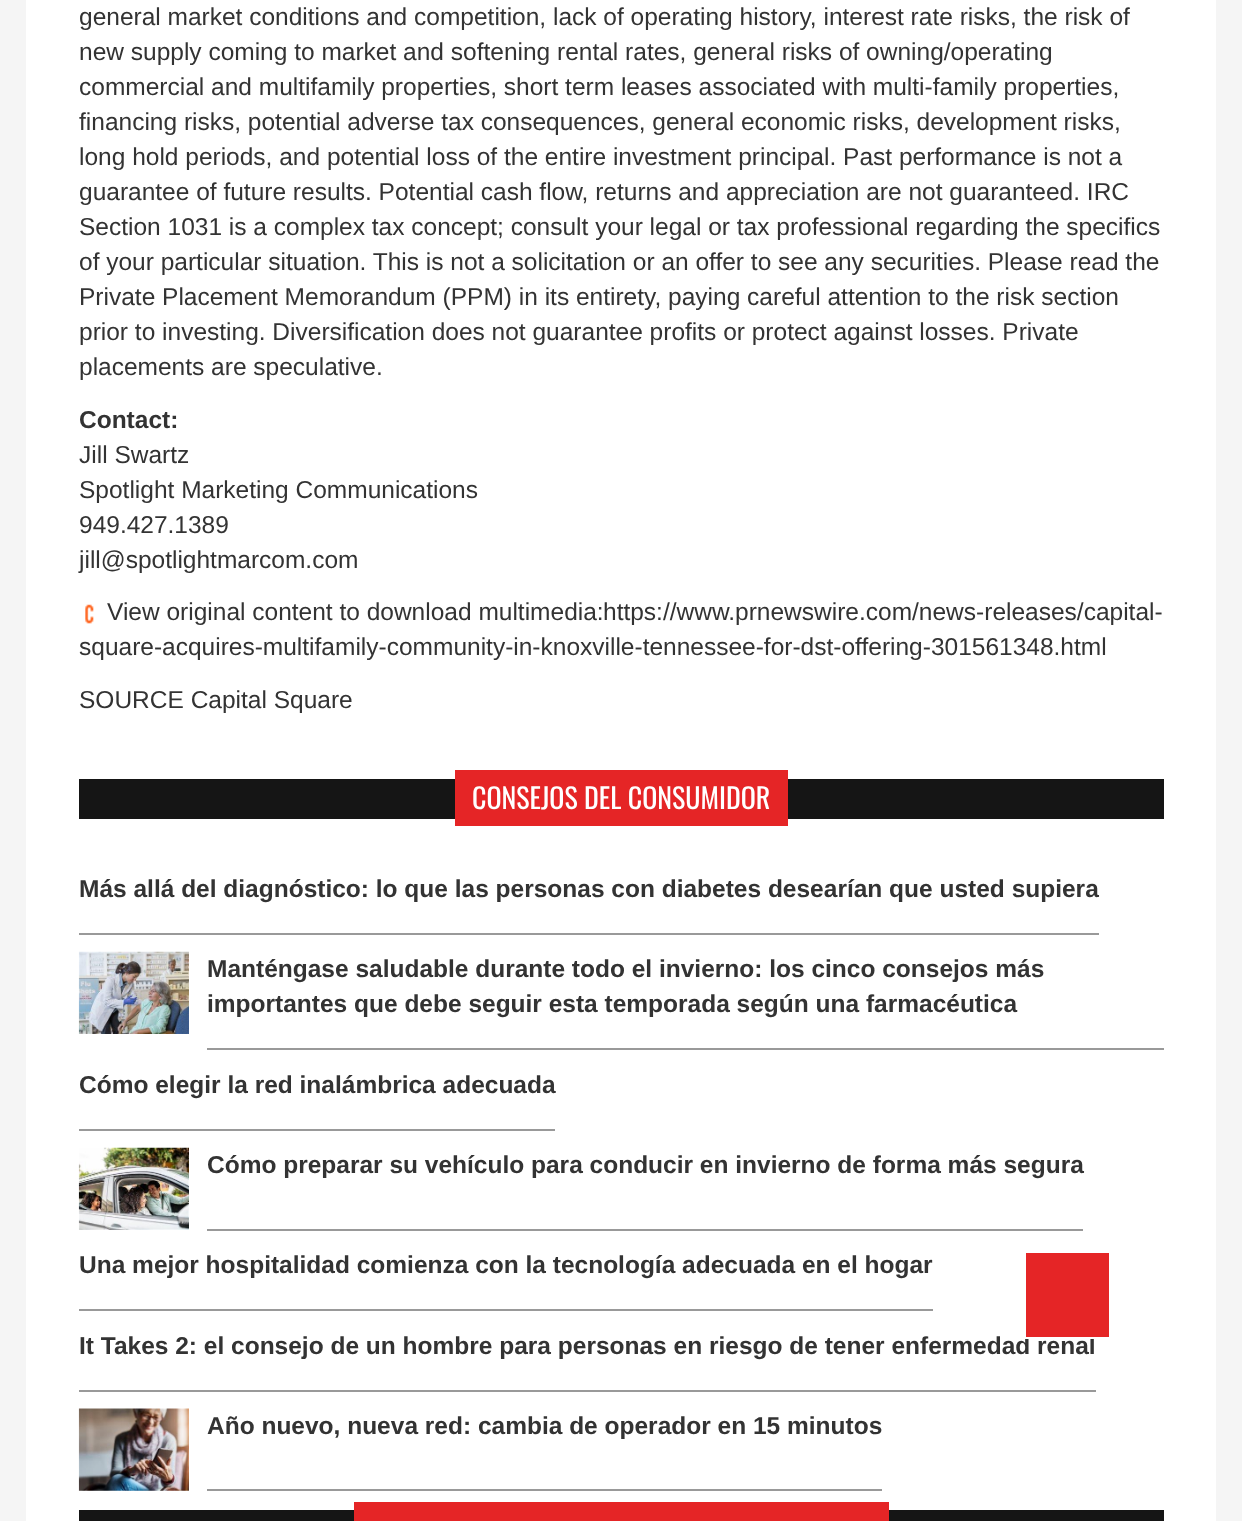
<svg xmlns="http://www.w3.org/2000/svg" width="1242" height="1521">
<rect width="100%" height="100%" fill="#f5f5f5"/>
<rect x="26" width="1190" height="1521" fill="#fff"/>
<text x="79" y="25" style="font-family:Liberation Sans;font-size:24.5px;fill:#333">general market conditions and competition, lack of operating history, interest rate risks, the risk of</text>
<text x="79" y="60" style="font-family:Liberation Sans;font-size:24.5px;fill:#333">new supply coming to market and softening rental rates, general risks of owning/operating</text>
<text x="79" y="95" style="font-family:Liberation Sans;font-size:24.5px;fill:#333">commercial and multifamily properties, short term leases associated with multi-family properties,</text>
<text x="79" y="130" style="font-family:Liberation Sans;font-size:24.5px;fill:#333">financing risks, potential adverse tax consequences, general economic risks, development risks,</text>
<text x="79" y="165" style="font-family:Liberation Sans;font-size:24.5px;fill:#333">long hold periods, and potential loss of the entire investment principal. Past performance is not a</text>
<text x="79" y="200" style="font-family:Liberation Sans;font-size:24.5px;fill:#333">guarantee of future results. Potential cash flow, returns and appreciation are not guaranteed. IRC</text>
<text x="79" y="235" style="font-family:Liberation Sans;font-size:24.5px;fill:#333">Section 1031 is a complex tax concept; consult your legal or tax professional regarding the specifics</text>
<text x="79" y="270" style="font-family:Liberation Sans;font-size:24.5px;fill:#333">of your particular situation. This is not a solicitation or an offer to see any securities. Please read the</text>
<text x="79" y="305" style="font-family:Liberation Sans;font-size:24.5px;fill:#333">Private Placement Memorandum (PPM) in its entirety, paying careful attention to the risk section</text>
<text x="79" y="340" style="font-family:Liberation Sans;font-size:24.5px;fill:#333">prior to investing. Diversification does not guarantee profits or protect against losses. Private</text>
<text x="79" y="375" style="font-family:Liberation Sans;font-size:24.5px;fill:#333">placements are speculative.</text>
<text x="79" y="428" style="font-family:Liberation Sans;font-size:24.5px;font-weight:bold;fill:#333">Contact:</text>
<text x="79" y="463" style="font-family:Liberation Sans;font-size:24.5px;fill:#333">Jill Swartz</text>
<text x="79" y="498" style="font-family:Liberation Sans;font-size:24.5px;fill:#333">Spotlight Marketing Communications</text>
<text x="79" y="533" style="font-family:Liberation Sans;font-size:24.5px;fill:#333">949.427.1389</text>
<text x="79" y="568" style="font-family:Liberation Sans;font-size:24.5px;fill:#333">jill@spotlightmarcom.com</text>
<image x="85" y="604" width="9" height="20" href="media/1.png"/>
<text x="107" y="620" style="font-family:Liberation Sans;font-size:24.5px;fill:#333">View original content to download multimedia:</text>
<text x="603" y="620" style="font-family:Liberation Sans;font-size:24.5px;fill:#333">https://www.prnewswire.com/news-releases/capital-</text>
<text x="79" y="655" style="font-family:Liberation Sans;font-size:24.5px;fill:#333">square-acquires-multifamily-community-in-knoxville-tennessee-for-dst-offering-301561348.html</text>
<text x="79" y="708" style="font-family:Liberation Sans;font-size:24.5px;fill:#333">SOURCE Capital Square</text>
<rect x="79" y="779" width="1085" height="40" fill="#151515"/>
<rect x="455" y="770" width="333" height="56" fill="#e52526"/>
<text x="472" y="809" style="font-family:Oswald;font-size:28px;fill:#fff">CONSEJOS DEL CONSUMIDOR</text>
<rect x="79" y="933" width="1020" height="2" fill="#999"/>
<text x="79" y="897" style="font-family:Liberation Sans;font-size:24.5px;font-weight:bold;fill:#333">Más allá del diagnóstico: lo que las personas con diabetes desearían que usted supiera</text>
<image x="78" y="951" width="111" height="83" href="media/2.png"/>
<rect x="207" y="1048" width="957" height="2" fill="#999"/>
<text x="207" y="977" style="font-family:Liberation Sans;font-size:24.5px;font-weight:bold;fill:#333">Manténgase saludable durante todo el invierno: los cinco consejos más</text>
<text x="207" y="1012" style="font-family:Liberation Sans;font-size:24.5px;font-weight:bold;fill:#333">importantes que debe seguir esta temporada según una farmacéutica</text>
<rect x="79" y="1129" width="476" height="2" fill="#999"/>
<text x="79" y="1093" style="font-family:Liberation Sans;font-size:24.5px;font-weight:bold;fill:#333">Cómo elegir la red inalámbrica adecuada</text>
<image x="78" y="1147" width="111" height="83" href="media/3.png"/>
<rect x="207" y="1229" width="876" height="2" fill="#999"/>
<text x="207" y="1173" style="font-family:Liberation Sans;font-size:24.5px;font-weight:bold;fill:#333">Cómo preparar su vehículo para conducir en invierno de forma más segura</text>
<rect x="79" y="1309" width="854" height="2" fill="#999"/>
<text x="79" y="1273" style="font-family:Liberation Sans;font-size:24.5px;font-weight:bold;fill:#333">Una mejor hospitalidad comienza con la tecnología adecuada en el hogar</text>
<rect x="79" y="1390" width="1017" height="2" fill="#999"/>
<text x="79" y="1354" style="font-family:Liberation Sans;font-size:24.5px;font-weight:bold;fill:#333">It Takes 2: el consejo de un hombre para personas en riesgo de tener enfermedad renal</text>
<image x="78" y="1408" width="111" height="83" href="media/4.png"/>
<rect x="207" y="1489" width="675" height="2" fill="#999"/>
<text x="207" y="1434" style="font-family:Liberation Sans;font-size:24.5px;font-weight:bold;fill:#333">Año nuevo, nueva red: cambia de operador en 15 minutos</text>
<rect x="79" y="1510" width="1085" height="11" fill="#151515"/>
<rect x="354" y="1502" width="535" height="19" fill="#e52526"/>
<rect x="1025" y="1252" width="85" height="86" fill="#e52526" stroke="#fff" stroke-width="2"/>
</svg>
